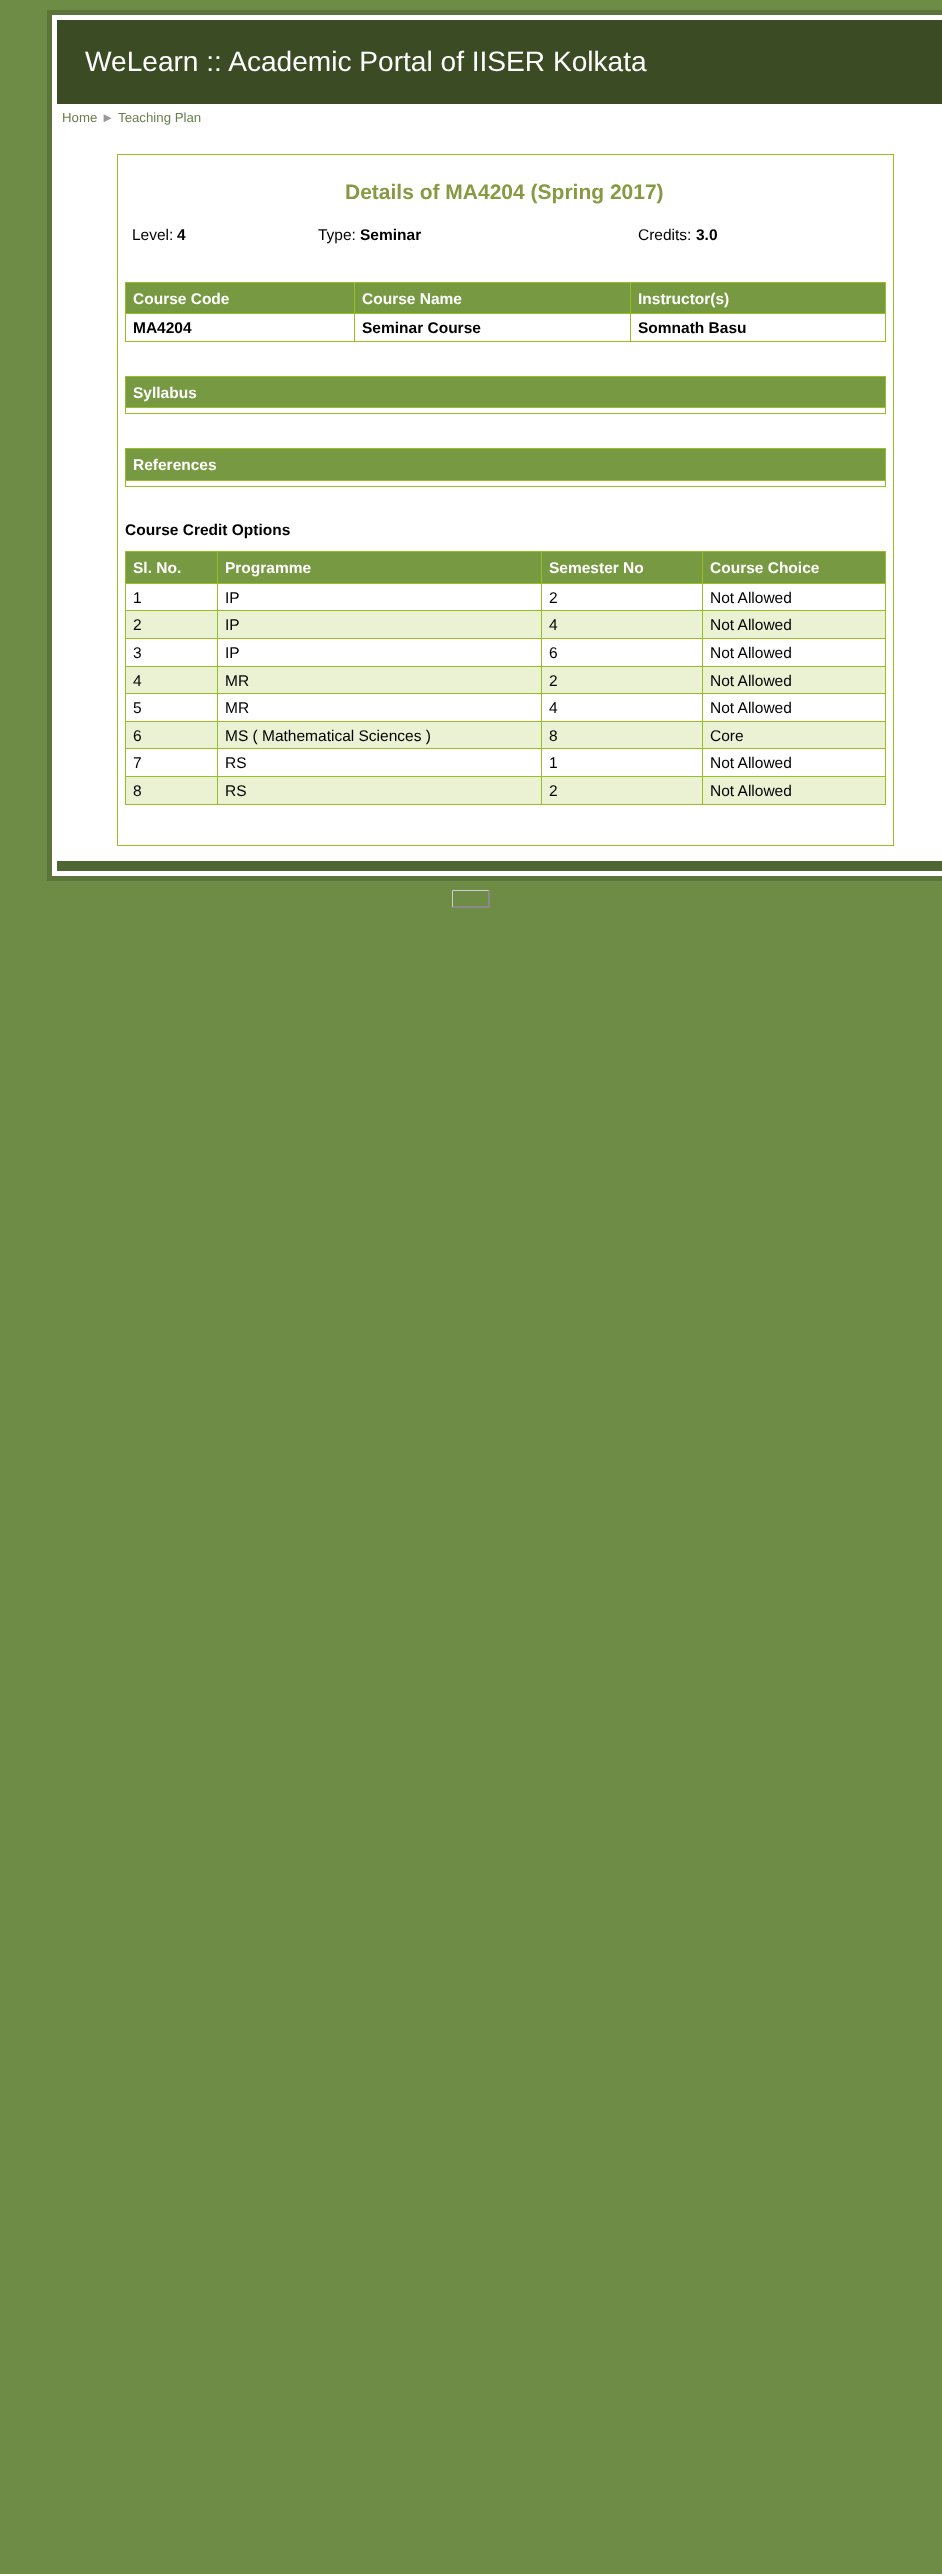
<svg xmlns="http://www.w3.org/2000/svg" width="942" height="2574">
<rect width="100%" height="100%" fill="#6e8c45"/>
<rect x="47" y="10" width="895" height="871" fill="#5b7439"/>
<rect x="52" y="15" width="890" height="861" fill="#fff"/>
<rect x="57" y="20" width="885" height="84" fill="#3b4c25"/>
<text x="85" y="71" style="font-family:Liberation Sans;font-size:28.1px;fill:#fff">WeLearn :: Academic Portal of IISER Kolkata</text>
<text x="62" y="122" style="font-family:Liberation Sans;font-size:13.25px;fill:#69804e">Home</text>
<text x="101" y="122" style="font-family:Liberation Sans;font-size:13.25px;fill:#999">►</text>
<text x="118" y="122" style="font-family:Liberation Sans;font-size:13.25px;fill:#69804e">Teaching Plan</text>
<rect x="117.5" y="154.5" width="776" height="691" fill="none" stroke="#98bf21"/>
<text x="345" y="199" style="font-family:Liberation Sans;font-size:21px;font-weight:bold;fill:#879942">Details of MA4204 (Spring 2017)</text>
<text x="132" y="240" style="font-family:Liberation Sans;font-size:15.5px;fill:#000">Level:</text>
<text x="177" y="240" style="font-family:Liberation Sans;font-size:15.5px;font-weight:bold;fill:#000">4</text>
<text x="318" y="240" style="font-family:Liberation Sans;font-size:15.5px;fill:#000">Type:</text>
<text x="360" y="240" style="font-family:Liberation Sans;font-size:15.5px;font-weight:bold;fill:#000">Seminar</text>
<text x="638" y="240" style="font-family:Liberation Sans;font-size:15.5px;fill:#000">Credits:</text>
<text x="696" y="240" style="font-family:Liberation Sans;font-size:15.5px;font-weight:bold;fill:#000">3.0</text>
<rect x="126" y="283" width="228" height="30" fill="#779942"/>
<rect x="630" y="282" width="256" height="1" fill="#98bf21"/>
<rect x="630" y="313" width="256" height="1" fill="#98bf21"/>
<rect x="885" y="313" width="1" height="29" fill="#98bf21"/>
<rect x="630" y="341" width="256" height="1" fill="#98bf21"/>
<rect x="630" y="313" width="1" height="29" fill="#98bf21"/>
<rect x="354" y="313" width="277" height="1" fill="#98bf21"/>
<rect x="630" y="282" width="1" height="32" fill="#98bf21"/>
<rect x="354" y="282" width="277" height="1" fill="#98bf21"/>
<rect x="354" y="341" width="277" height="1" fill="#98bf21"/>
<rect x="354" y="313" width="1" height="29" fill="#98bf21"/>
<rect x="125" y="313" width="230" height="1" fill="#98bf21"/>
<rect x="354" y="282" width="1" height="32" fill="#98bf21"/>
<rect x="125" y="282" width="230" height="1" fill="#98bf21"/>
<rect x="125" y="341" width="230" height="1" fill="#98bf21"/>
<rect x="125" y="313" width="1" height="29" fill="#98bf21"/>
<rect x="125" y="282" width="1" height="32" fill="#98bf21"/>
<text x="133" y="304" style="font-family:Liberation Sans;font-size:15.5px;font-weight:bold;fill:#fff">Course Code</text>
<rect x="355" y="283" width="275" height="30" fill="#779942"/>
<text x="362" y="304" style="font-family:Liberation Sans;font-size:15.5px;font-weight:bold;fill:#fff">Course Name</text>
<rect x="631" y="283" width="254" height="30" fill="#779942"/>
<rect x="885" y="282" width="1" height="32" fill="#98bf21"/>
<text x="638" y="304" style="font-family:Liberation Sans;font-size:15.5px;font-weight:bold;fill:#fff">Instructor(s)</text>
<text x="133" y="333" style="font-family:Liberation Sans;font-size:15.5px;font-weight:bold;fill:#000">MA4204</text>
<text x="362" y="333" style="font-family:Liberation Sans;font-size:15.5px;font-weight:bold;fill:#000">Seminar Course</text>
<text x="638" y="333" style="font-family:Liberation Sans;font-size:15.5px;font-weight:bold;fill:#000">Somnath Basu</text>
<rect x="126" y="377" width="759" height="30" fill="#779942"/>
<rect x="125" y="376" width="761" height="1" fill="#98bf21"/>
<rect x="125" y="407" width="761" height="1" fill="#98bf21"/>
<rect x="885" y="407" width="1" height="7" fill="#98bf21"/>
<rect x="885" y="376" width="1" height="32" fill="#98bf21"/>
<rect x="125" y="413" width="761" height="1" fill="#98bf21"/>
<rect x="125" y="407" width="1" height="7" fill="#98bf21"/>
<rect x="125" y="376" width="1" height="32" fill="#98bf21"/>
<text x="133" y="398" style="font-family:Liberation Sans;font-size:15.5px;font-weight:bold;fill:#fff">Syllabus</text>
<rect x="126" y="449" width="759" height="31" fill="#779942"/>
<rect x="125" y="448" width="761" height="1" fill="#98bf21"/>
<rect x="125" y="480" width="761" height="1" fill="#98bf21"/>
<rect x="885" y="480" width="1" height="7" fill="#98bf21"/>
<rect x="885" y="448" width="1" height="33" fill="#98bf21"/>
<rect x="125" y="486" width="761" height="1" fill="#98bf21"/>
<rect x="125" y="480" width="1" height="7" fill="#98bf21"/>
<rect x="125" y="448" width="1" height="33" fill="#98bf21"/>
<text x="133" y="470" style="font-family:Liberation Sans;font-size:15.5px;font-weight:bold;fill:#fff">References</text>
<text x="125" y="535" style="font-family:Liberation Sans;font-size:15.5px;font-weight:bold;fill:#000">Course Credit Options</text>
<rect x="126" y="552" width="91" height="31" fill="#779942"/>
<rect x="702" y="551" width="184" height="1" fill="#98bf21"/>
<rect x="702" y="583" width="184" height="1" fill="#98bf21"/>
<rect x="702" y="610" width="184" height="1" fill="#98bf21"/>
<rect x="702" y="638" width="184" height="1" fill="#98bf21"/>
<rect x="702" y="666" width="184" height="1" fill="#98bf21"/>
<rect x="702" y="693" width="184" height="1" fill="#98bf21"/>
<rect x="702" y="721" width="184" height="1" fill="#98bf21"/>
<rect x="702" y="748" width="184" height="1" fill="#98bf21"/>
<rect x="702" y="776" width="184" height="1" fill="#98bf21"/>
<rect x="885" y="776" width="1" height="29" fill="#98bf21"/>
<rect x="702" y="804" width="184" height="1" fill="#98bf21"/>
<rect x="702" y="776" width="1" height="29" fill="#98bf21"/>
<rect x="541" y="776" width="162" height="1" fill="#98bf21"/>
<rect x="702" y="748" width="1" height="29" fill="#98bf21"/>
<rect x="541" y="748" width="162" height="1" fill="#98bf21"/>
<rect x="702" y="721" width="1" height="28" fill="#98bf21"/>
<rect x="541" y="721" width="162" height="1" fill="#98bf21"/>
<rect x="702" y="693" width="1" height="29" fill="#98bf21"/>
<rect x="541" y="693" width="162" height="1" fill="#98bf21"/>
<rect x="702" y="666" width="1" height="28" fill="#98bf21"/>
<rect x="541" y="666" width="162" height="1" fill="#98bf21"/>
<rect x="702" y="638" width="1" height="29" fill="#98bf21"/>
<rect x="541" y="638" width="162" height="1" fill="#98bf21"/>
<rect x="702" y="610" width="1" height="29" fill="#98bf21"/>
<rect x="541" y="610" width="162" height="1" fill="#98bf21"/>
<rect x="702" y="583" width="1" height="28" fill="#98bf21"/>
<rect x="541" y="583" width="162" height="1" fill="#98bf21"/>
<rect x="702" y="551" width="1" height="33" fill="#98bf21"/>
<rect x="541" y="551" width="162" height="1" fill="#98bf21"/>
<rect x="541" y="804" width="162" height="1" fill="#98bf21"/>
<rect x="541" y="776" width="1" height="29" fill="#98bf21"/>
<rect x="217" y="776" width="325" height="1" fill="#98bf21"/>
<rect x="541" y="748" width="1" height="29" fill="#98bf21"/>
<rect x="217" y="748" width="325" height="1" fill="#98bf21"/>
<rect x="541" y="721" width="1" height="28" fill="#98bf21"/>
<rect x="217" y="721" width="325" height="1" fill="#98bf21"/>
<rect x="541" y="693" width="1" height="29" fill="#98bf21"/>
<rect x="217" y="693" width="325" height="1" fill="#98bf21"/>
<rect x="541" y="666" width="1" height="28" fill="#98bf21"/>
<rect x="217" y="666" width="325" height="1" fill="#98bf21"/>
<rect x="541" y="638" width="1" height="29" fill="#98bf21"/>
<rect x="217" y="638" width="325" height="1" fill="#98bf21"/>
<rect x="541" y="610" width="1" height="29" fill="#98bf21"/>
<rect x="217" y="610" width="325" height="1" fill="#98bf21"/>
<rect x="541" y="583" width="1" height="28" fill="#98bf21"/>
<rect x="217" y="583" width="325" height="1" fill="#98bf21"/>
<rect x="541" y="551" width="1" height="33" fill="#98bf21"/>
<rect x="217" y="551" width="325" height="1" fill="#98bf21"/>
<rect x="217" y="804" width="325" height="1" fill="#98bf21"/>
<rect x="217" y="776" width="1" height="29" fill="#98bf21"/>
<rect x="125" y="776" width="93" height="1" fill="#98bf21"/>
<rect x="217" y="748" width="1" height="29" fill="#98bf21"/>
<rect x="125" y="748" width="93" height="1" fill="#98bf21"/>
<rect x="217" y="721" width="1" height="28" fill="#98bf21"/>
<rect x="125" y="721" width="93" height="1" fill="#98bf21"/>
<rect x="217" y="693" width="1" height="29" fill="#98bf21"/>
<rect x="125" y="693" width="93" height="1" fill="#98bf21"/>
<rect x="217" y="666" width="1" height="28" fill="#98bf21"/>
<rect x="125" y="666" width="93" height="1" fill="#98bf21"/>
<rect x="217" y="638" width="1" height="29" fill="#98bf21"/>
<rect x="125" y="638" width="93" height="1" fill="#98bf21"/>
<rect x="217" y="610" width="1" height="29" fill="#98bf21"/>
<rect x="125" y="610" width="93" height="1" fill="#98bf21"/>
<rect x="217" y="583" width="1" height="28" fill="#98bf21"/>
<rect x="125" y="583" width="93" height="1" fill="#98bf21"/>
<rect x="217" y="551" width="1" height="33" fill="#98bf21"/>
<rect x="125" y="551" width="93" height="1" fill="#98bf21"/>
<rect x="125" y="804" width="93" height="1" fill="#98bf21"/>
<rect x="125" y="776" width="1" height="29" fill="#98bf21"/>
<rect x="125" y="748" width="1" height="29" fill="#98bf21"/>
<rect x="125" y="721" width="1" height="28" fill="#98bf21"/>
<rect x="125" y="693" width="1" height="29" fill="#98bf21"/>
<rect x="125" y="666" width="1" height="28" fill="#98bf21"/>
<rect x="125" y="638" width="1" height="29" fill="#98bf21"/>
<rect x="125" y="610" width="1" height="29" fill="#98bf21"/>
<rect x="125" y="583" width="1" height="28" fill="#98bf21"/>
<rect x="125" y="551" width="1" height="33" fill="#98bf21"/>
<text x="133" y="573" style="font-family:Liberation Sans;font-size:15.5px;font-weight:bold;fill:#fff">Sl. No.</text>
<rect x="218" y="552" width="323" height="31" fill="#779942"/>
<text x="225" y="573" style="font-family:Liberation Sans;font-size:15.5px;font-weight:bold;fill:#fff">Programme</text>
<rect x="542" y="552" width="160" height="31" fill="#779942"/>
<text x="549" y="573" style="font-family:Liberation Sans;font-size:15.5px;font-weight:bold;fill:#fff">Semester No</text>
<rect x="703" y="552" width="182" height="31" fill="#779942"/>
<rect x="885" y="748" width="1" height="29" fill="#98bf21"/>
<rect x="885" y="721" width="1" height="28" fill="#98bf21"/>
<rect x="885" y="693" width="1" height="29" fill="#98bf21"/>
<rect x="885" y="666" width="1" height="28" fill="#98bf21"/>
<rect x="885" y="638" width="1" height="29" fill="#98bf21"/>
<rect x="885" y="610" width="1" height="29" fill="#98bf21"/>
<rect x="885" y="583" width="1" height="28" fill="#98bf21"/>
<rect x="885" y="551" width="1" height="33" fill="#98bf21"/>
<text x="710" y="573" style="font-family:Liberation Sans;font-size:15.5px;font-weight:bold;fill:#fff">Course Choice</text>
<text x="133" y="603" style="font-family:Liberation Sans;font-size:15.5px;fill:#000">1</text>
<text x="225" y="603" style="font-family:Liberation Sans;font-size:15.5px;fill:#000">IP</text>
<text x="549" y="603" style="font-family:Liberation Sans;font-size:15.5px;fill:#000">2</text>
<text x="710" y="603" style="font-family:Liberation Sans;font-size:15.5px;fill:#000">Not Allowed</text>
<rect x="126" y="611" width="91" height="27" fill="#eaf2d3"/>
<text x="133" y="630" style="font-family:Liberation Sans;font-size:15.5px;fill:#000">2</text>
<rect x="218" y="611" width="323" height="27" fill="#eaf2d3"/>
<text x="225" y="630" style="font-family:Liberation Sans;font-size:15.5px;fill:#000">IP</text>
<rect x="542" y="611" width="160" height="27" fill="#eaf2d3"/>
<text x="549" y="630" style="font-family:Liberation Sans;font-size:15.5px;fill:#000">4</text>
<rect x="703" y="611" width="182" height="27" fill="#eaf2d3"/>
<text x="710" y="630" style="font-family:Liberation Sans;font-size:15.5px;fill:#000">Not Allowed</text>
<text x="133" y="658" style="font-family:Liberation Sans;font-size:15.5px;fill:#000">3</text>
<text x="225" y="658" style="font-family:Liberation Sans;font-size:15.5px;fill:#000">IP</text>
<text x="549" y="658" style="font-family:Liberation Sans;font-size:15.5px;fill:#000">6</text>
<text x="710" y="658" style="font-family:Liberation Sans;font-size:15.5px;fill:#000">Not Allowed</text>
<rect x="126" y="667" width="91" height="26" fill="#eaf2d3"/>
<text x="133" y="686" style="font-family:Liberation Sans;font-size:15.5px;fill:#000">4</text>
<rect x="218" y="667" width="323" height="26" fill="#eaf2d3"/>
<text x="225" y="686" style="font-family:Liberation Sans;font-size:15.5px;fill:#000">MR</text>
<rect x="542" y="667" width="160" height="26" fill="#eaf2d3"/>
<text x="549" y="686" style="font-family:Liberation Sans;font-size:15.5px;fill:#000">2</text>
<rect x="703" y="667" width="182" height="26" fill="#eaf2d3"/>
<text x="710" y="686" style="font-family:Liberation Sans;font-size:15.5px;fill:#000">Not Allowed</text>
<text x="133" y="713" style="font-family:Liberation Sans;font-size:15.5px;fill:#000">5</text>
<text x="225" y="713" style="font-family:Liberation Sans;font-size:15.5px;fill:#000">MR</text>
<text x="549" y="713" style="font-family:Liberation Sans;font-size:15.5px;fill:#000">4</text>
<text x="710" y="713" style="font-family:Liberation Sans;font-size:15.5px;fill:#000">Not Allowed</text>
<rect x="126" y="722" width="91" height="26" fill="#eaf2d3"/>
<text x="133" y="741" style="font-family:Liberation Sans;font-size:15.5px;fill:#000">6</text>
<rect x="218" y="722" width="323" height="26" fill="#eaf2d3"/>
<text x="225" y="741" style="font-family:Liberation Sans;font-size:15.5px;fill:#000">MS ( Mathematical Sciences )</text>
<rect x="542" y="722" width="160" height="26" fill="#eaf2d3"/>
<text x="549" y="741" style="font-family:Liberation Sans;font-size:15.5px;fill:#000">8</text>
<rect x="703" y="722" width="182" height="26" fill="#eaf2d3"/>
<text x="710" y="741" style="font-family:Liberation Sans;font-size:15.5px;fill:#000">Core</text>
<text x="133" y="768" style="font-family:Liberation Sans;font-size:15.5px;fill:#000">7</text>
<text x="225" y="768" style="font-family:Liberation Sans;font-size:15.5px;fill:#000">RS</text>
<text x="549" y="768" style="font-family:Liberation Sans;font-size:15.5px;fill:#000">1</text>
<text x="710" y="768" style="font-family:Liberation Sans;font-size:15.5px;fill:#000">Not Allowed</text>
<rect x="126" y="777" width="91" height="27" fill="#eaf2d3"/>
<text x="133" y="796" style="font-family:Liberation Sans;font-size:15.5px;fill:#000">8</text>
<rect x="218" y="777" width="323" height="27" fill="#eaf2d3"/>
<text x="225" y="796" style="font-family:Liberation Sans;font-size:15.5px;fill:#000">RS</text>
<rect x="542" y="777" width="160" height="27" fill="#eaf2d3"/>
<text x="549" y="796" style="font-family:Liberation Sans;font-size:15.5px;fill:#000">2</text>
<rect x="703" y="777" width="182" height="27" fill="#eaf2d3"/>
<text x="710" y="796" style="font-family:Liberation Sans;font-size:15.5px;fill:#000">Not Allowed</text>
<rect x="57" y="861" width="885" height="10" fill="#4e6632"/>
<path d="M452 890h38l-2 1h-35z" fill="#cecece"/>
<path d="M490 890v18l-2-2v-15z" fill="#8a8a8a"/>
<path d="M490 908h-38l1-2h35z" fill="#8a8a8a"/>
<path d="M452 908v-18l1 1v15z" fill="#cecece"/>
</svg>
